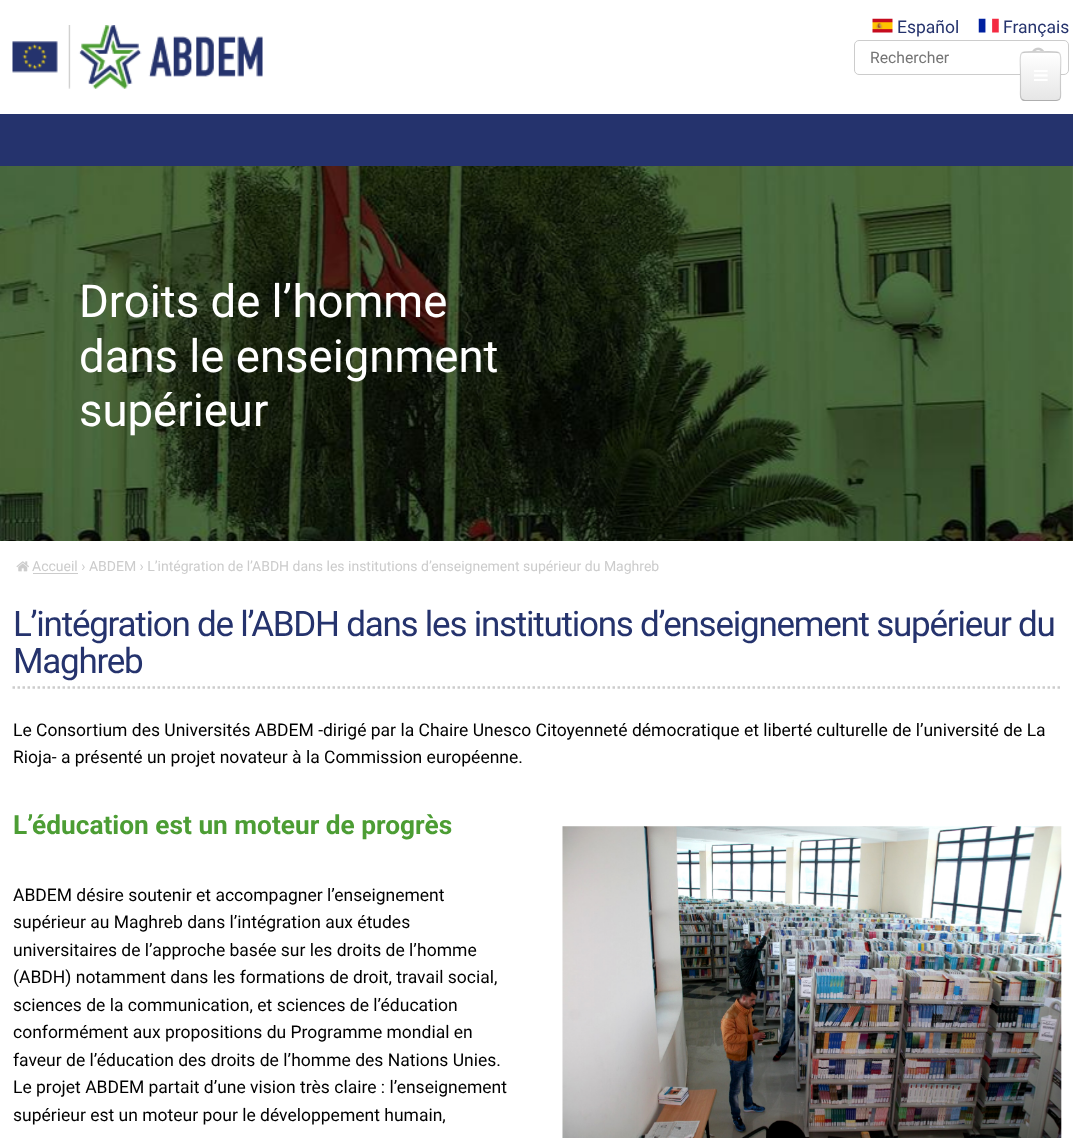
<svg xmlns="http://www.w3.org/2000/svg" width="1073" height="1138">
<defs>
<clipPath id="clip1"><rect x="1020" y="51" width="41" height="50" rx="5"/></clipPath>
<linearGradient id="g1" gradientUnits="userSpaceOnUse" x1="1041" y1="53" x2="1041" y2="100"><stop offset="0" stop-color="#fff"/><stop offset="1" stop-color="#e6e6e6"/></linearGradient>
</defs>
<rect width="100%" height="100%" fill="#fff"/>
<image x="12" y="25" width="251" height="64" href="media/1.png"/>
<image x="872" y="18" width="21" height="15" href="media/2.png"/>
<text x="897" y="33" style="font-family:Roboto;font-size:17.5px;fill:#25336d">Español</text>
<image x="978" y="18" width="21" height="15" href="media/3.png"/>
<text x="1003" y="33" style="font-family:Roboto;font-size:17.5px;fill:#25336d">Français</text>
<rect x="854.5" y="40.5" width="214" height="34" rx="4.5" fill="none" stroke="#ccc"/>
<image x="1032" y="47" width="12" height="4" href="media/4.png"/>
<text x="870" y="63" style="font-family:Roboto;font-size:15.75px;fill:#757575">Rechercher</text>
<rect y="114" width="1073" height="52" fill="#25336d"/>
<rect x="1020" y="51" width="41" height="50" rx="5" fill="#e8e8e8"/>
<g clip-path="url(#clip1)">
<rect x="1020" y="53" width="41" height="47" fill="url(#g1)"/>
</g>
<path d="M1059.5 99.5c-1 .5-2 1-3.5 1h-31c-1 0-2.5-.5-3-1" fill="none" stroke="#00000040" stroke-width="1.2"/>
<path d="M1022 99.5c-2.5-2.5-1.5-7.5-1.5-10v-13.5c0-27-5-24 20-24c25 0 20-3 20 24v13.5c0 2.5 1 7.5-1 10" fill="none" stroke="#00000026" stroke-width="1.2"/>
<image x="1034" y="70" width="14" height="11" href="media/5.png"/>
<image x="0" y="166" width="1073" height="375" href="media/6.png"/>
<text x="79" y="317" style="font-family:Roboto;font-size:45.5px;fill:#fff">Droits de l’homme</text>
<text x="79" y="372" style="font-family:Roboto;font-size:45.5px;fill:#fff">dans le enseignment</text>
<text x="79" y="426" style="font-family:Roboto;font-size:45.5px;fill:#fff">supérieur</text>
<image x="16" y="561" width="13" height="11" href="media/7.png"/>
<rect x="33" y="573" width="45" height="1" fill="#ccc"/>
<text x="32" y="571" style="font-family:Roboto;font-size:14px;fill:#ccc">Accueil › ABDEM › L’intégration de l’ABDH dans les institutions d’enseignement supérieur du Maghreb</text>
<path d="M12.5 687.5h1048.5" fill="none" stroke="#ccc" stroke-width="2.5" stroke-dasharray="2.5 2.5"/>
<text x="13" y="636" style="font-family:Roboto;font-size:35px;letter-spacing:-1.25px;fill:#25336d">L’intégration de l’ABDH dans les institutions d’enseignement supérieur du</text>
<text x="13" y="673" style="font-family:Roboto;font-size:35px;letter-spacing:-1.25px;fill:#25336d">Maghreb</text>
<text x="13" y="736" style="font-family:Roboto;font-size:17.5px;fill:#000">Le Consortium des Universités ABDEM -dirigé par la Chaire Unesco Citoyenneté démocratique et liberté culturelle de l’université de La</text>
<text x="13" y="763" style="font-family:Roboto;font-size:17.5px;fill:#000">Rioja- a présenté un projet novateur à la Commission européenne.</text>
<text x="13" y="834" style="font-family:Roboto;font-size:26.25px;font-weight:bold;fill:#4c9d34">L’éducation est un moteur de progrès</text>
<text x="13" y="901" style="font-family:Roboto;font-size:17.5px;fill:#000">ABDEM désire soutenir et accompagner l’enseignement</text>
<text x="13" y="928" style="font-family:Roboto;font-size:17.5px;fill:#000">supérieur au Maghreb dans l’intégration aux études</text>
<text x="13" y="956" style="font-family:Roboto;font-size:17.5px;fill:#000">universitaires de l’approche basée sur les droits de l’homme</text>
<text x="13" y="983" style="font-family:Roboto;font-size:17.5px;fill:#000">(ABDH) notamment dans les formations de droit, travail social,</text>
<text x="13" y="1011" style="font-family:Roboto;font-size:17.5px;fill:#000">sciences de la communication, et sciences de l’éducation</text>
<text x="13" y="1038" style="font-family:Roboto;font-size:17.5px;fill:#000">conformément aux propositions du Programme mondial en</text>
<text x="13" y="1066" style="font-family:Roboto;font-size:17.5px;fill:#000">faveur de l’éducation des droits de l’homme des Nations Unies.</text>
<text x="13" y="1093" style="font-family:Roboto;font-size:17.5px;fill:#000">Le projet ABDEM partait d’une vision très claire : l’enseignement</text>
<text x="13" y="1121" style="font-family:Roboto;font-size:17.5px;fill:#000">supérieur est un moteur pour le développement humain,</text>
<image x="562" y="826" width="500" height="312" href="media/8.png"/>
</svg>
